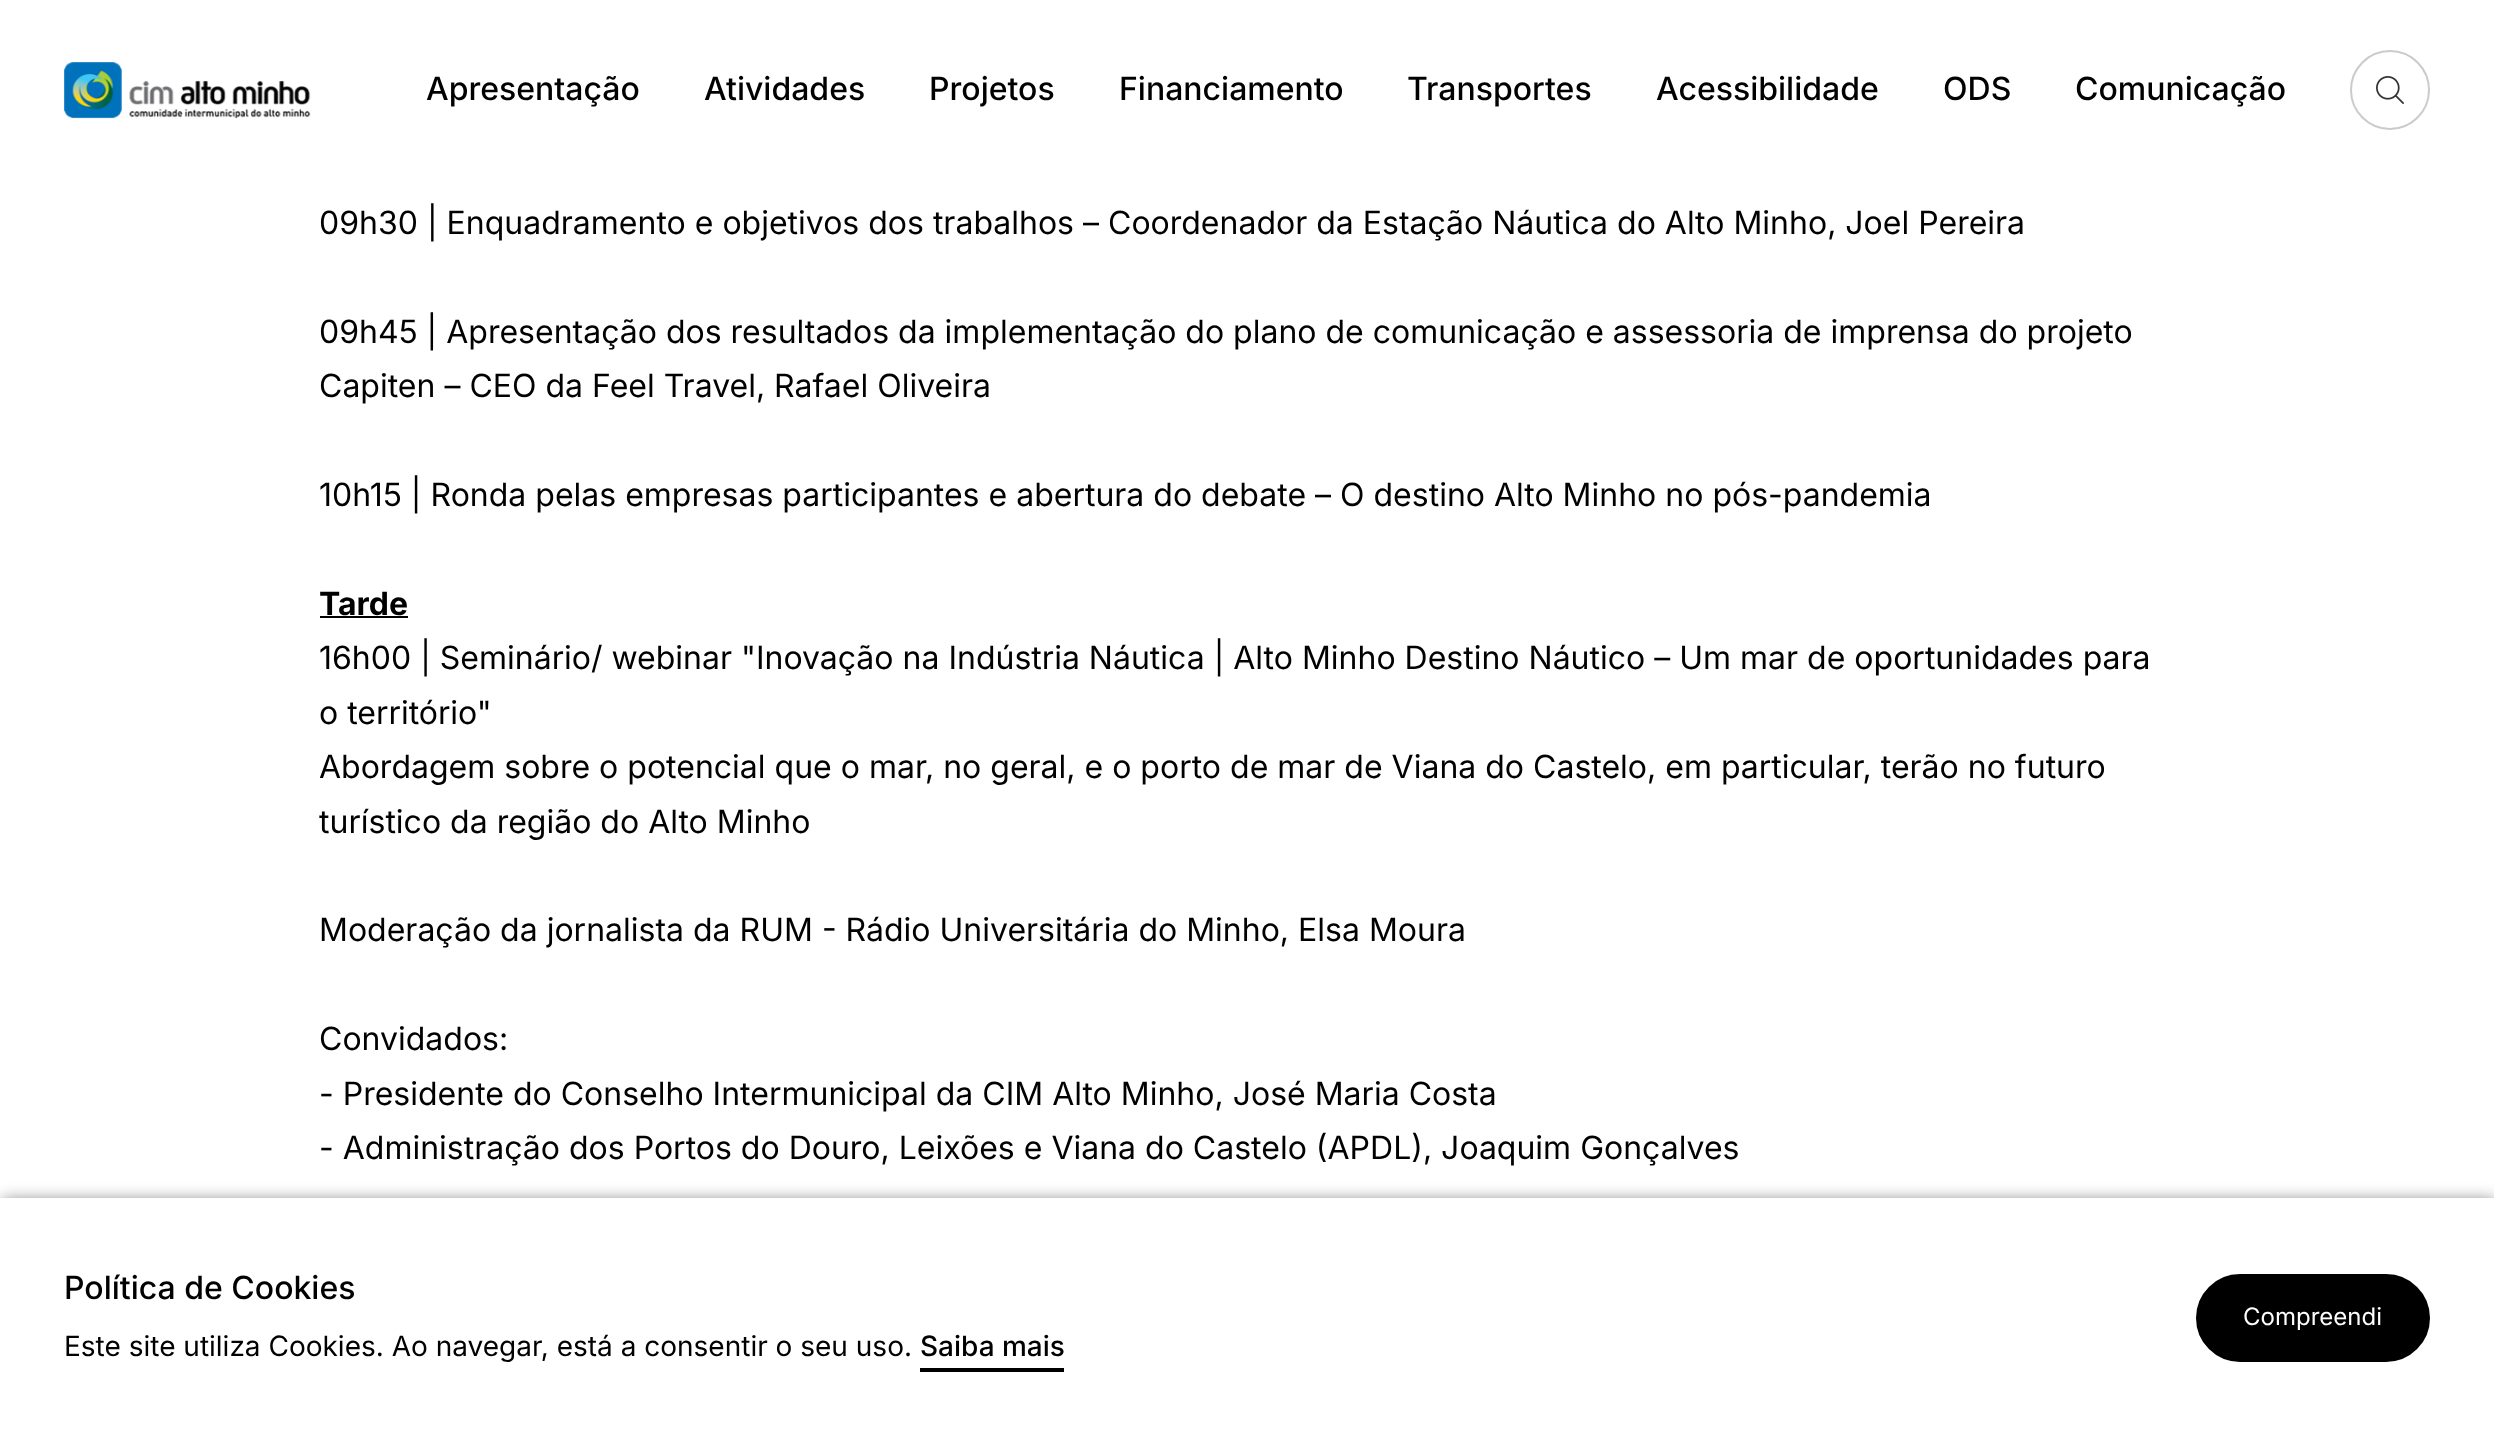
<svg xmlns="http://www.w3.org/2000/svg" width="2494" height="1436">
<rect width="100%" height="100%" fill="#fff"/>
<image x="64" y="62" width="247" height="57" href="media/1.png"/>
<text x="426" y="100" style="font-family:Inter;font-size:32px;font-weight:500;fill:#000">Apresentação</text>
<text x="704" y="100" style="font-family:Inter;font-size:32px;font-weight:500;fill:#000">Atividades</text>
<text x="929" y="100" style="font-family:Inter;font-size:32px;font-weight:500;fill:#000">Projetos</text>
<text x="1119" y="100" style="font-family:Inter;font-size:32px;font-weight:500;fill:#000">Financiamento</text>
<text x="1407" y="100" style="font-family:Inter;font-size:32px;font-weight:500;fill:#000">Transportes</text>
<text x="1656" y="100" style="font-family:Inter;font-size:32px;font-weight:500;fill:#000">Acessibilidade</text>
<text x="1943" y="100" style="font-family:Inter;font-size:32px;font-weight:500;fill:#000">ODS</text>
<text x="2075" y="100" style="font-family:Inter;font-size:32px;font-weight:500;fill:#000">Comunicação</text>
<image x="2376" y="76" width="28" height="28" href="media/2.png"/>
<circle cx="2390" cy="90" r="39" fill="none" stroke="#cbcbcb" stroke-width="2"/>
<text x="319" y="234" style="font-family:Inter;font-size:32px;fill:#000">09h30 | Enquadramento e objetivos dos trabalhos – Coordenador da Estação Náutica do Alto Minho, Joel Pereira</text>
<text x="319" y="343" style="font-family:Inter;font-size:32px;fill:#000">09h45 | Apresentação dos resultados da implementação do plano de comunicação e assessoria de imprensa do projeto</text>
<text x="319" y="397" style="font-family:Inter;font-size:32px;fill:#000">Capiten – CEO da Feel Travel, Rafael Oliveira</text>
<text x="319" y="506" style="font-family:Inter;font-size:32px;fill:#000">10h15 | Ronda pelas empresas participantes e abertura do debate – O destino Alto Minho no pós-pandemia</text>
<text x="319" y="615" style="font-family:Inter;font-size:32px;font-weight:bold;fill:#000">Tarde</text>
<rect x="320" y="616" width="88" height="2" fill="#000"/>
<text x="319" y="669" style="font-family:Inter;font-size:32px;fill:#000">16h00 | Seminário/ webinar "Inovação na Indústria Náutica | Alto Minho Destino Náutico – Um mar de oportunidades para</text>
<text x="319" y="724" style="font-family:Inter;font-size:32px;fill:#000">o território"</text>
<text x="319" y="778" style="font-family:Inter;font-size:32px;fill:#000">Abordagem sobre o potencial que o mar, no geral, e o porto de mar de Viana do Castelo, em particular, terão no futuro</text>
<text x="319" y="833" style="font-family:Inter;font-size:32px;fill:#000">turístico da região do Alto Minho</text>
<text x="319" y="941" style="font-family:Inter;font-size:32px;fill:#000">Moderação da jornalista da RUM - Rádio Universitária do Minho, Elsa Moura</text>
<text x="319" y="1050" style="font-family:Inter;font-size:32px;fill:#000">Convidados:</text>
<text x="319" y="1105" style="font-family:Inter;font-size:32px;fill:#000">- Presidente do Conselho Intermunicipal da CIM Alto Minho, José Maria Costa</text>
<text x="319" y="1159" style="font-family:Inter;font-size:32px;fill:#000">- Administração dos Portos do Douro, Leixões e Viana do Castelo (APDL), Joaquim Gonçalves</text>
<rect x="2" y="1200" width="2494" height="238" fill="#00000080" filter="blur(8px)"/>
<rect y="1198" width="2494" height="238" fill="#fff"/>
<text x="64" y="1299" style="font-family:Inter;font-size:32px;font-weight:500;fill:#000">Política de Cookies</text>
<text x="64" y="1356" style="font-family:Inter;font-size:28px;fill:#000">Este site utiliza Cookies. Ao navegar, está a consentir o seu uso.</text>
<rect x="920" y="1368" width="144" height="4" fill="#000"/>
<text x="920" y="1356" style="font-family:Inter;font-size:28px;font-weight:500;fill:#000">Saiba mais</text>
<rect x="2197" y="1275" width="232" height="86" rx="43" fill="#000" stroke="#000" stroke-width="2"/>
<text x="2243" y="1325" style="font-family:Inter;font-size:24px;fill:#fff">Compreendi</text>
</svg>
